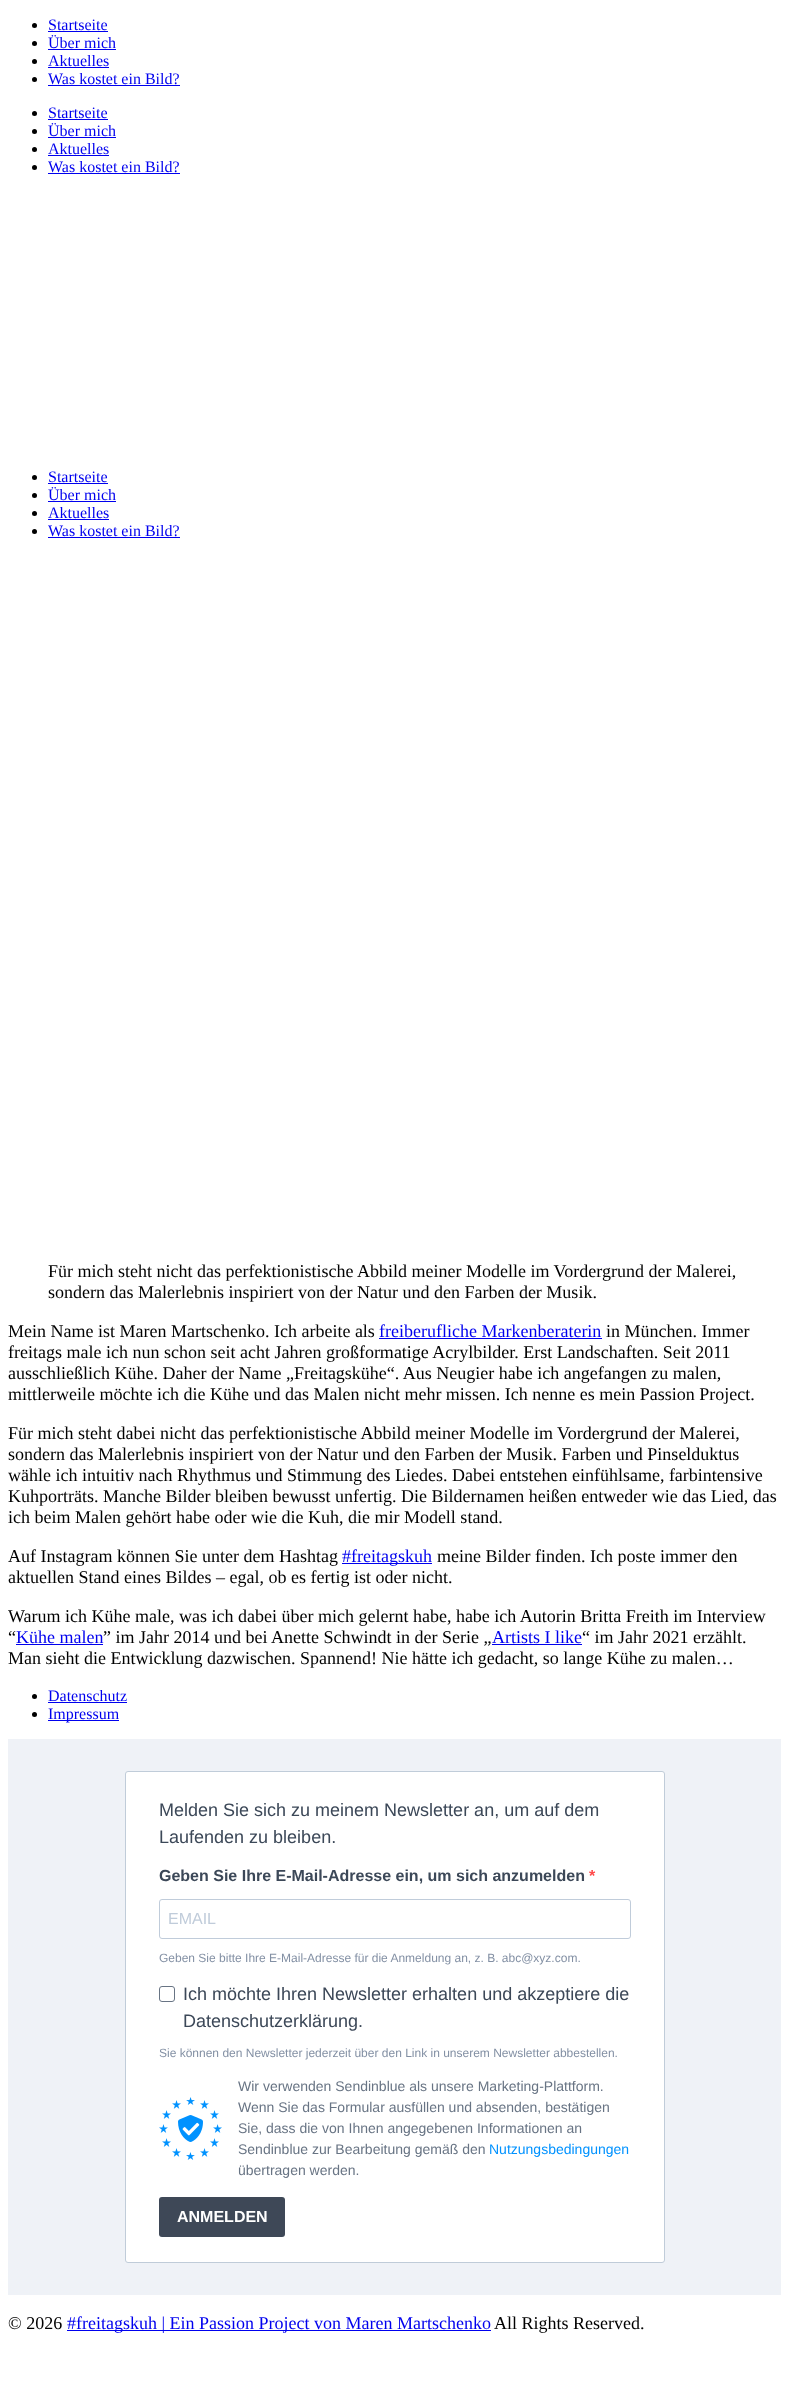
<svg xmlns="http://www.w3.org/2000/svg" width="789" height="2391">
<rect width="100%" height="100%" fill="#fff"/>
<circle cx="34.5" cy="25.5" r="2.5" fill="#000"/>
<text x="48" y="30" style="font-family:Liberation Serif;font-size:16px;fill:#00e">Startseite</text>
<rect x="48" y="31" width="60" height="1" fill="#00e"/>
<circle cx="34.5" cy="43.5" r="2.5" fill="#000"/>
<text x="48" y="48" style="font-family:Liberation Serif;font-size:16px;fill:#00e">Über mich</text>
<rect x="48" y="49" width="68" height="1" fill="#00e"/>
<circle cx="34.5" cy="61.5" r="2.5" fill="#000"/>
<text x="48" y="66" style="font-family:Liberation Serif;font-size:16px;fill:#00e">Aktuelles</text>
<rect x="48" y="67" width="61" height="1" fill="#00e"/>
<circle cx="34.5" cy="79.5" r="2.5" fill="#000"/>
<text x="48" y="84" style="font-family:Liberation Serif;font-size:16px;fill:#00e">Was kostet ein Bild?</text>
<rect x="48" y="85" width="132" height="1" fill="#00e"/>
<circle cx="34.5" cy="113.5" r="2.5" fill="#000"/>
<text x="48" y="118" style="font-family:Liberation Serif;font-size:16px;fill:#00e">Startseite</text>
<rect x="48" y="119" width="60" height="1" fill="#00e"/>
<circle cx="34.5" cy="131.5" r="2.5" fill="#000"/>
<text x="48" y="136" style="font-family:Liberation Serif;font-size:16px;fill:#00e">Über mich</text>
<rect x="48" y="137" width="68" height="1" fill="#00e"/>
<circle cx="34.5" cy="149.5" r="2.5" fill="#000"/>
<text x="48" y="154" style="font-family:Liberation Serif;font-size:16px;fill:#00e">Aktuelles</text>
<rect x="48" y="155" width="61" height="1" fill="#00e"/>
<circle cx="34.5" cy="167.5" r="2.5" fill="#000"/>
<text x="48" y="172" style="font-family:Liberation Serif;font-size:16px;fill:#00e">Was kostet ein Bild?</text>
<rect x="48" y="173" width="132" height="1" fill="#00e"/>
<circle cx="34.5" cy="477.5" r="2.5" fill="#000"/>
<text x="48" y="482" style="font-family:Liberation Serif;font-size:16px;fill:#00e">Startseite</text>
<rect x="48" y="483" width="60" height="1" fill="#00e"/>
<circle cx="34.5" cy="495.5" r="2.5" fill="#000"/>
<text x="48" y="500" style="font-family:Liberation Serif;font-size:16px;fill:#00e">Über mich</text>
<rect x="48" y="501" width="68" height="1" fill="#00e"/>
<circle cx="34.5" cy="513.5" r="2.5" fill="#000"/>
<text x="48" y="518" style="font-family:Liberation Serif;font-size:16px;fill:#00e">Aktuelles</text>
<rect x="48" y="519" width="61" height="1" fill="#00e"/>
<circle cx="34.5" cy="531.5" r="2.5" fill="#000"/>
<text x="48" y="536" style="font-family:Liberation Serif;font-size:16px;fill:#00e">Was kostet ein Bild?</text>
<rect x="48" y="537" width="132" height="1" fill="#00e"/>
<text x="48" y="1277" style="font-family:Liberation Serif;font-size:18px;fill:#000">Für mich steht nicht das perfektionistische Abbild meiner Modelle im Vordergrund der Malerei,</text>
<text x="48" y="1298" style="font-family:Liberation Serif;font-size:18px;fill:#000">sondern das Malerlebnis inspiriert von der Natur und den Farben der Musik.</text>
<text x="8" y="1337" style="font-family:Liberation Serif;font-size:18px;fill:#000">Mein Name ist Maren Martschenko. Ich arbeite als</text>
<text x="379" y="1337" style="font-family:Liberation Serif;font-size:18px;fill:#00e">freiberufliche Markenberaterin</text>
<rect x="379" y="1338" width="223" height="1" fill="#00e"/>
<text x="606" y="1337" style="font-family:Liberation Serif;font-size:18px;fill:#000">in München. Immer</text>
<text x="8" y="1358" style="font-family:Liberation Serif;font-size:18px;fill:#000">freitags male ich nun schon seit acht Jahren großformatige Acrylbilder. Erst Landschaften. Seit 2011</text>
<text x="8" y="1379" style="font-family:Liberation Serif;font-size:18px;fill:#000">ausschließlich Kühe. Daher der Name „Freitagskühe“. Aus Neugier habe ich angefangen zu malen,</text>
<text x="8" y="1400" style="font-family:Liberation Serif;font-size:18px;fill:#000">mittlerweile möchte ich die Kühe und das Malen nicht mehr missen. Ich nenne es mein Passion Project.</text>
<text x="8" y="1439" style="font-family:Liberation Serif;font-size:18px;fill:#000">Für mich steht dabei nicht das perfektionistische Abbild meiner Modelle im Vordergrund der Malerei,</text>
<text x="8" y="1460" style="font-family:Liberation Serif;font-size:18px;fill:#000">sondern das Malerlebnis inspiriert von der Natur und den Farben der Musik. Farben und Pinselduktus</text>
<text x="8" y="1481" style="font-family:Liberation Serif;font-size:18px;fill:#000">wähle ich intuitiv nach Rhythmus und Stimmung des Liedes. Dabei entstehen einfühlsame, farbintensive</text>
<text x="8" y="1502" style="font-family:Liberation Serif;font-size:18px;fill:#000">Kuhporträts. Manche Bilder bleiben bewusst unfertig. Die Bildernamen heißen entweder wie das Lied, das</text>
<text x="8" y="1523" style="font-family:Liberation Serif;font-size:18px;fill:#000">ich beim Malen gehört habe oder wie die Kuh, die mir Modell stand.</text>
<text x="8" y="1562" style="font-family:Liberation Serif;font-size:18px;fill:#000">Auf Instagram können Sie unter dem Hashtag</text>
<rect x="342" y="1563" width="90" height="1" fill="#00e"/>
<text x="342" y="1562" style="font-family:Liberation Serif;font-size:18px;fill:#00e">#freitagskuh</text>
<text x="437" y="1562" style="font-family:Liberation Serif;font-size:18px;fill:#000">meine Bilder finden. Ich poste immer den</text>
<text x="8" y="1583" style="font-family:Liberation Serif;font-size:18px;fill:#000">aktuellen Stand eines Bildes – egal, ob es fertig ist oder nicht.</text>
<text x="8" y="1622" style="font-family:Liberation Serif;font-size:18px;fill:#000">Warum ich Kühe male, was ich dabei über mich gelernt habe, habe ich Autorin Britta Freith im Interview</text>
<text x="8" y="1643" style="font-family:Liberation Serif;font-size:18px;fill:#000">“</text>
<text x="16" y="1643" style="font-family:Liberation Serif;font-size:18px;fill:#00e">Kühe malen</text>
<rect x="16" y="1644" width="87" height="1" fill="#00e"/>
<text x="103" y="1643" style="font-family:Liberation Serif;font-size:18px;fill:#000">” im Jahr 2014 und bei Anette Schwindt in der Serie „</text>
<text x="492" y="1643" style="font-family:Liberation Serif;font-size:18px;fill:#00e">Artists I like</text>
<rect x="492" y="1644" width="90" height="1" fill="#00e"/>
<text x="582" y="1643" style="font-family:Liberation Serif;font-size:18px;fill:#000">“ im Jahr 2021 erzählt.</text>
<text x="8" y="1664" style="font-family:Liberation Serif;font-size:18px;fill:#000">Man sieht die Entwicklung dazwischen. Spannend! Nie hätte ich gedacht, so lange Kühe zu malen…</text>
<circle cx="34.5" cy="1696.5" r="2.5" fill="#000"/>
<text x="48" y="1701" style="font-family:Liberation Serif;font-size:16px;fill:#00e">Datenschutz</text>
<rect x="48" y="1702" width="79" height="1" fill="#00e"/>
<circle cx="34.5" cy="1714.5" r="2.5" fill="#000"/>
<rect x="48" y="1720" width="71" height="1" fill="#00e"/>
<text x="48" y="1719" style="font-family:Liberation Serif;font-size:16px;fill:#00e">Impressum</text>
<rect x="8" y="1739" width="773" height="556" fill="#eff2f7"/>
<rect x="125.5" y="1771.5" width="539" height="491" rx="2.5" fill="#fff" stroke="#c0ccd9"/>
<text x="159" y="1816" style="font-family:Liberation Sans;font-size:18px;fill:#3c4858">Melden Sie sich zu meinem Newsletter an, um auf dem</text>
<text x="159" y="1843" style="font-family:Liberation Sans;font-size:18px;fill:#3c4858">Laufenden zu bleiben.</text>
<text x="159" y="1881" style="font-family:Liberation Sans;font-size:16px;font-weight:bold;fill:#3c4858">Geben Sie Ihre E-Mail-Adresse ein, um sich anzumelden</text>
<text x="589" y="1881" style="font-family:Liberation Sans;font-size:16px;font-weight:bold;fill:#ff4949">*</text>
<rect x="159.5" y="1899.5" width="471" height="39" rx="2.5" fill="none" stroke="#c0ccda"/>
<text x="168" y="1924" style="font-family:Liberation Sans;font-size:16px;fill:#c0ccda">EMAIL</text>
<text x="159" y="1962" style="font-family:Liberation Sans;font-size:12px;fill:#8390a4">Geben Sie bitte Ihre E-Mail-Adresse für die Anmeldung an, z. B. abc@xyz.com.</text>
<rect x="159.5" y="1986.5" width="15" height="15" rx="2.5" fill="none" stroke="#687484"/>
<text x="183" y="2000" style="font-family:Liberation Sans;font-size:18px;fill:#3c4858">Ich möchte Ihren Newsletter erhalten und akzeptiere die</text>
<text x="183" y="2027" style="font-family:Liberation Sans;font-size:18px;fill:#3c4858">Datenschutzerklärung.</text>
<text x="159" y="2057" style="font-family:Liberation Sans;font-size:12px;fill:#8390a4">Sie können den Newsletter jederzeit über den Link in unserem Newsletter abbestellen.</text>
<image x="159" y="2097" width="63" height="63" href="media/1.png"/>
<text x="238" y="2091" style="font-family:Liberation Sans;font-size:14px;fill:#687484">Wir verwenden Sendinblue als unsere Marketing-Plattform.</text>
<text x="238" y="2112" style="font-family:Liberation Sans;font-size:14px;fill:#687484">Wenn Sie das Formular ausfüllen und absenden, bestätigen</text>
<text x="238" y="2133" style="font-family:Liberation Sans;font-size:14px;fill:#687484">Sie, dass die von Ihnen angegebenen Informationen an</text>
<text x="238" y="2154" style="font-family:Liberation Sans;font-size:14px;fill:#687484">Sendinblue zur Bearbeitung gemäß den</text>
<text x="489" y="2154" style="font-family:Liberation Sans;font-size:14px;fill:#0092ff">Nutzungsbedingungen</text>
<text x="238" y="2175" style="font-family:Liberation Sans;font-size:14px;fill:#687484">übertragen werden.</text>
<rect x="159" y="2197" width="126" height="40" rx="3" fill="#3e4857"/>
<text x="177" y="2222" style="font-family:Liberation Sans;font-size:16px;font-weight:bold;fill:#fff">ANMELDEN</text>
<text x="8" y="2329" style="font-family:Liberation Serif;font-size:18px;fill:#000">© 2026</text>
<rect x="67" y="2330" width="424" height="1" fill="#00e"/>
<text x="67" y="2329" style="font-family:Liberation Serif;font-size:18px;fill:#00e">#freitagskuh | Ein Passion Project von Maren Martschenko</text>
<text x="494" y="2329" style="font-family:Liberation Serif;font-size:18px;fill:#000">All Rights Reserved.</text>
</svg>
